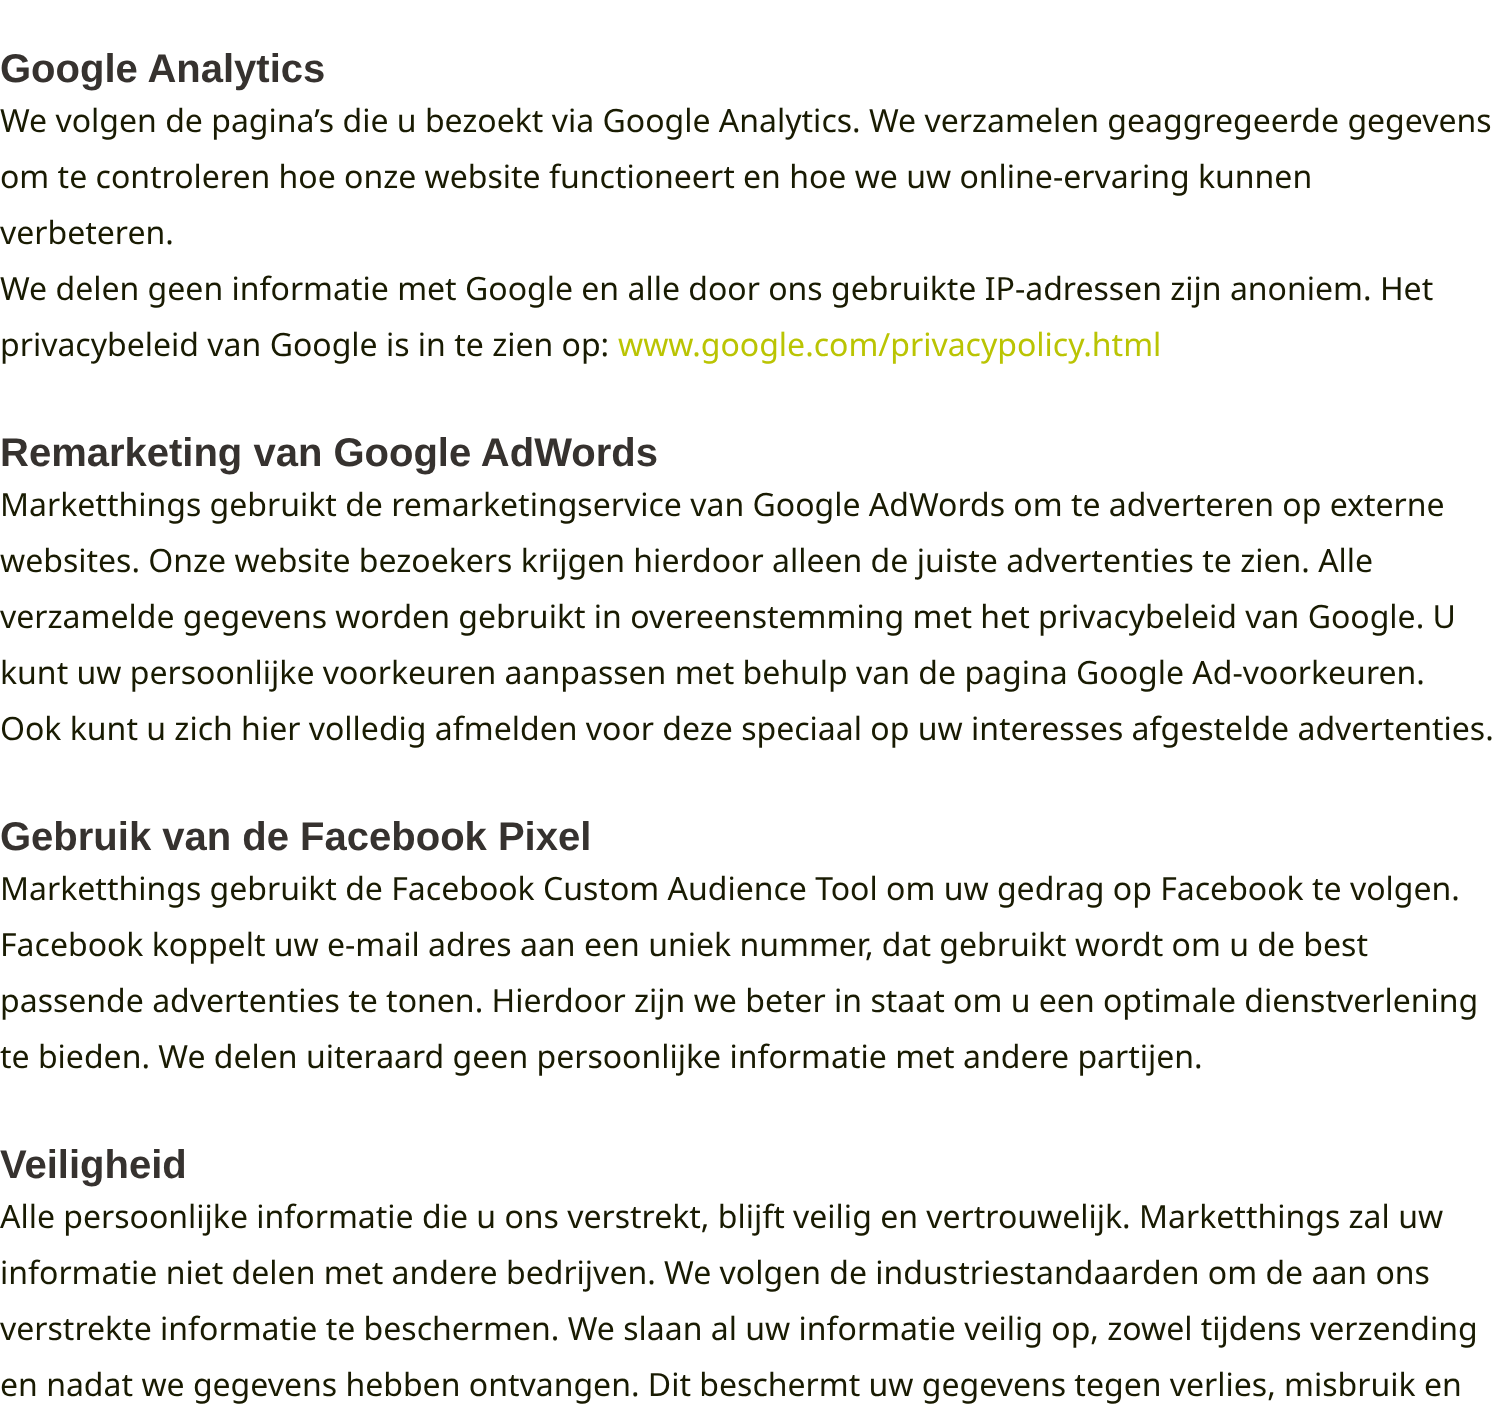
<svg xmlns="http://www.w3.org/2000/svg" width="1494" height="1413">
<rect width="100%" height="100%" fill="#fff"/>
<text x="0" y="82" style="font-family:Liberation Sans;font-size:40px;font-weight:bold;fill:#36322f">Google Analytics</text>
<text x="0" y="132" style="font-family:Noto Sans;font-size:32px;fill:#191b02">We volgen de pagina’s die u bezoekt via Google Analytics. We verzamelen geaggregeerde gegevens</text>
<text x="0" y="188" style="font-family:Noto Sans;font-size:32px;fill:#191b02">om te controleren hoe onze website functioneert en hoe we uw online-ervaring kunnen</text>
<text x="0" y="244" style="font-family:Noto Sans;font-size:32px;fill:#191b02">verbeteren.</text>
<text x="0" y="300" style="font-family:Noto Sans;font-size:32px;fill:#191b02">We delen geen informatie met Google en alle door ons gebruikte IP-adressen zijn anoniem. Het</text>
<text x="0" y="356" style="font-family:Noto Sans;font-size:32px;fill:#191b02">privacybeleid van Google is in te zien op:</text>
<text x="618" y="356" style="font-family:Noto Sans;font-size:32px;fill:#bac403">www.google.com/privacypolicy.html</text>
<text x="0" y="466" style="font-family:Liberation Sans;font-size:40px;font-weight:bold;fill:#36322f">Remarketing van Google AdWords</text>
<text x="0" y="516" style="font-family:Noto Sans;font-size:32px;fill:#191b02">Marketthings gebruikt de remarketingservice van Google AdWords om te adverteren op externe</text>
<text x="0" y="572" style="font-family:Noto Sans;font-size:32px;fill:#191b02">websites. Onze website bezoekers krijgen hierdoor alleen de juiste advertenties te zien. Alle</text>
<text x="0" y="628" style="font-family:Noto Sans;font-size:32px;fill:#191b02">verzamelde gegevens worden gebruikt in overeenstemming met het privacybeleid van Google. U</text>
<text x="0" y="684" style="font-family:Noto Sans;font-size:32px;fill:#191b02">kunt uw persoonlijke voorkeuren aanpassen met behulp van de pagina Google Ad-voorkeuren.</text>
<text x="0" y="740" style="font-family:Noto Sans;font-size:32px;fill:#191b02">Ook kunt u zich hier volledig afmelden voor deze speciaal op uw interesses afgestelde advertenties.</text>
<text x="0" y="850" style="font-family:Liberation Sans;font-size:40px;font-weight:bold;fill:#36322f">Gebruik van de Facebook Pixel</text>
<text x="0" y="900" style="font-family:Noto Sans;font-size:32px;fill:#191b02">Marketthings gebruikt de Facebook Custom Audience Tool om uw gedrag op Facebook te volgen.</text>
<text x="0" y="956" style="font-family:Noto Sans;font-size:32px;fill:#191b02">Facebook koppelt uw e-mail adres aan een uniek nummer, dat gebruikt wordt om u de best</text>
<text x="0" y="1012" style="font-family:Noto Sans;font-size:32px;fill:#191b02">passende advertenties te tonen. Hierdoor zijn we beter in staat om u een optimale dienstverlening</text>
<text x="0" y="1068" style="font-family:Noto Sans;font-size:32px;fill:#191b02">te bieden. We delen uiteraard geen persoonlijke informatie met andere partijen.</text>
<text x="0" y="1178" style="font-family:Liberation Sans;font-size:40px;font-weight:bold;fill:#36322f">Veiligheid</text>
<text x="0" y="1228" style="font-family:Noto Sans;font-size:32px;fill:#191b02">Alle persoonlijke informatie die u ons verstrekt, blijft veilig en vertrouwelijk. Marketthings zal uw</text>
<text x="0" y="1284" style="font-family:Noto Sans;font-size:32px;fill:#191b02">informatie niet delen met andere bedrijven. We volgen de industriestandaarden om de aan ons</text>
<text x="0" y="1340" style="font-family:Noto Sans;font-size:32px;fill:#191b02">verstrekte informatie te beschermen. We slaan al uw informatie veilig op, zowel tijdens verzending</text>
<text x="0" y="1396" style="font-family:Noto Sans;font-size:32px;fill:#191b02">en nadat we gegevens hebben ontvangen. Dit beschermt uw gegevens tegen verlies, misbruik en</text>
</svg>
